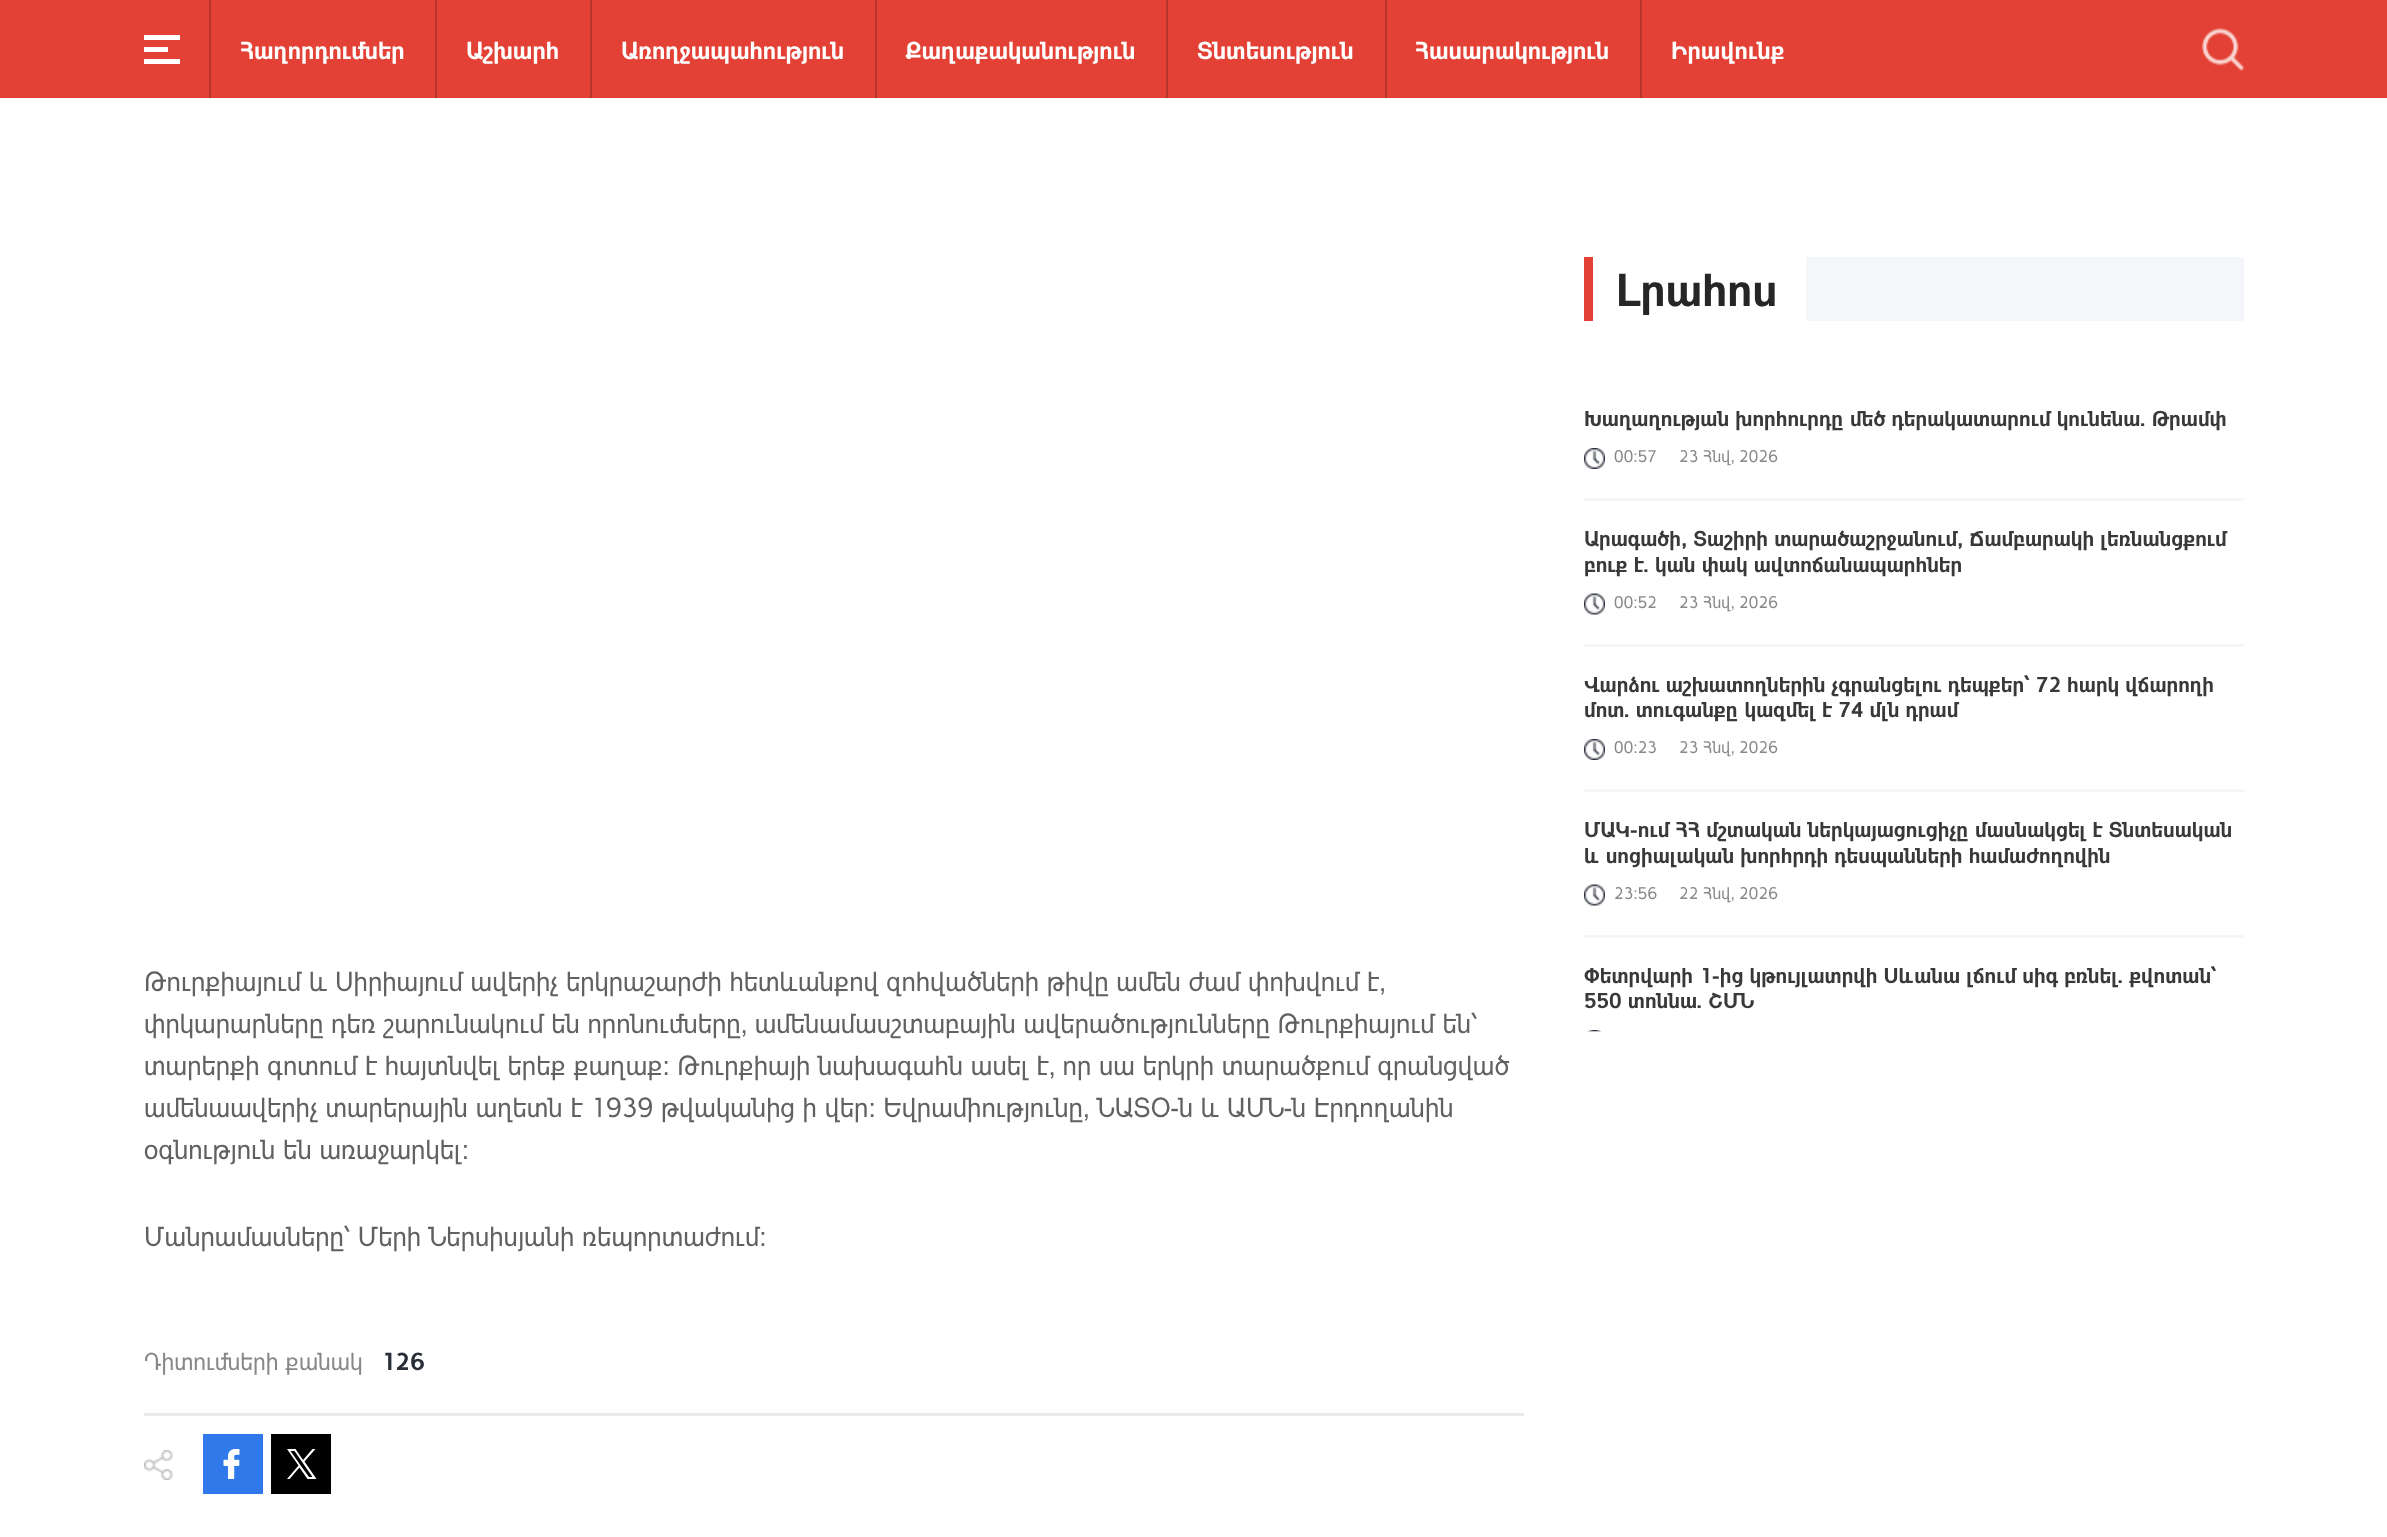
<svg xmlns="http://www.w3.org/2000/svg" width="2387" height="1537">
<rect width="100%" height="100%" fill="#fff"/>
<rect width="2387" height="98" fill="#e34135"/>
<rect x="144" y="35" width="36" height="5" fill="#fff"/>
<rect x="144" y="47" width="24" height="5" fill="#fff"/>
<rect x="144" y="59" width="36" height="5" fill="#fff"/>
<rect x="209" width="2" height="98" fill="#b6342a"/>
<text x="240" y="59" style="font-family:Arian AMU;font-size:24px;font-weight:bold;fill:#fff">Հաղորդումներ</text>
<rect x="435" width="2" height="98" fill="#b6342a"/>
<text x="466" y="59" style="font-family:Arian AMU;font-size:24px;font-weight:bold;fill:#fff">Աշխարհ</text>
<rect x="590" width="2" height="98" fill="#b6342a"/>
<text x="621" y="59" style="font-family:Arian AMU;font-size:24px;font-weight:bold;fill:#fff">Առողջապահություն</text>
<rect x="875" width="2" height="98" fill="#b6342a"/>
<text x="905" y="59" style="font-family:Arian AMU;font-size:24px;font-weight:bold;fill:#fff">Քաղաքականություն</text>
<rect x="1166" width="2" height="98" fill="#b6342a"/>
<text x="1197" y="59" style="font-family:Arian AMU;font-size:24px;font-weight:bold;fill:#fff">Տնտեսություն</text>
<rect x="1385" width="2" height="98" fill="#b6342a"/>
<text x="1415" y="59" style="font-family:Arian AMU;font-size:24px;font-weight:bold;fill:#fff">Հասարակություն</text>
<rect x="1640" width="2" height="98" fill="#b6342a"/>
<text x="1671" y="59" style="font-family:Arian AMU;font-size:24px;font-weight:bold;fill:#fff">Իրավունք</text>
<image x="2202" y="28" width="42" height="43" href="media/1.png"/>
<rect x="1806" y="257" width="438" height="64" fill="#f5f6fa"/>
<rect x="1584" y="257" width="9" height="64" fill="#e34135"/>
<text x="1616" y="306" style="font-family:Arian AMU;font-size:45px;font-weight:bold;fill:#262626">Լրահոս</text>
<rect x="1584" y="498" width="660" height="3" fill="#f5f6fa"/>
<text x="1584" y="426" style="font-family:Arian AMU;font-size:21px;font-weight:bold;fill:#393939">Խաղաղության խորհուրդը մեծ դերակատարում կունենա. Թրամփ</text>
<image x="1584" y="448" width="21" height="21" href="media/2.png"/>
<text x="1614" y="462" style="font-family:Arian AMU;font-size:16.5px;fill:#888">00:57</text>
<text x="1679" y="462" style="font-family:Arian AMU;font-size:16.5px;fill:#888">23 Հնվ, 2026</text>
<rect x="1584" y="644" width="660" height="3" fill="#f5f6fa"/>
<text x="1584" y="546" style="font-family:Arian AMU;font-size:21px;font-weight:bold;fill:#393939">Արագածի, Տաշիրի տարածաշրջանում, Ճամբարակի լեռնանցքում</text>
<text x="1584" y="572" style="font-family:Arian AMU;font-size:21px;font-weight:bold;fill:#393939">բուք է. կան փակ ավտոճանապարհներ</text>
<image x="1584" y="593" width="21" height="22" href="media/3.png"/>
<text x="1614" y="608" style="font-family:Arian AMU;font-size:16.5px;fill:#888">00:52</text>
<text x="1679" y="608" style="font-family:Arian AMU;font-size:16.5px;fill:#888">23 Հնվ, 2026</text>
<rect x="1584" y="789" width="660" height="3" fill="#f5f6fa"/>
<text x="1584" y="692" style="font-family:Arian AMU;font-size:21px;font-weight:bold;fill:#393939">Վարձու աշխատողներին չգրանցելու դեպքեր՝ 72 հարկ վճարողի</text>
<text x="1584" y="717" style="font-family:Arian AMU;font-size:21px;font-weight:bold;fill:#393939">մոտ. տուգանքը կազմել է 74 մլն դրամ</text>
<image x="1584" y="739" width="21" height="21" href="media/2.png"/>
<text x="1614" y="753" style="font-family:Arian AMU;font-size:16.5px;fill:#888">00:23</text>
<text x="1679" y="753" style="font-family:Arian AMU;font-size:16.5px;fill:#888">23 Հնվ, 2026</text>
<rect x="1584" y="935" width="660" height="3" fill="#f5f6fa"/>
<text x="1584" y="837" style="font-family:Arian AMU;font-size:21px;font-weight:bold;fill:#393939">ՄԱԿ-ում ՀՀ մշտական ներկայացուցիչը մասնակցել է Տնտեսական</text>
<text x="1584" y="863" style="font-family:Arian AMU;font-size:21px;font-weight:bold;fill:#393939">և սոցիալական խորհրդի դեսպանների համաժողովին</text>
<image x="1584" y="884" width="21" height="22" href="media/3.png"/>
<text x="1614" y="899" style="font-family:Arian AMU;font-size:16.5px;fill:#888">23:56</text>
<text x="1679" y="899" style="font-family:Arian AMU;font-size:16.5px;fill:#888">22 Հնվ, 2026</text>
<text x="1584" y="983" style="font-family:Arian AMU;font-size:21px;font-weight:bold;fill:#393939">Փետրվարի 1-ից կթույլատրվի Սևանա լճում սիգ բռնել. քվոտան՝</text>
<text x="1584" y="1008" style="font-family:Arian AMU;font-size:21px;font-weight:bold;fill:#393939">550 տոննա. ՇՄՆ</text>
<image x="1587" y="1030" width="15" height="2" href="media/4.png"/>
<text x="144" y="991" style="font-family:Arian AMU;font-size:27px;fill:#616161">Թուրքիայում և Սիրիայում ավերիչ երկրաշարժի հետևանքով զոհվածների թիվը ամեն ժամ փոխվում է,</text>
<text x="144" y="1033" style="font-family:Arian AMU;font-size:27px;fill:#616161">փրկարարները դեռ շարունակում են որոնումները, ամենամասշտաբային ավերածությունները Թուրքիայում են՝</text>
<text x="144" y="1075" style="font-family:Arian AMU;font-size:27px;fill:#616161">տարերքի գոտում է հայտնվել երեք քաղաք: Թուրքիայի նախագահն ասել է, որ սա երկրի տարածքում գրանցված</text>
<text x="144" y="1117" style="font-family:Arian AMU;font-size:27px;fill:#616161">ամենաավերիչ տարերային աղետն է 1939 թվականից ի վեր։ Եվրամիությունը, ՆԱՏՕ-ն և ԱՄՆ-ն Էրդողանին</text>
<text x="144" y="1159" style="font-family:Arian AMU;font-size:27px;fill:#616161">օգնություն են առաջարկել:</text>
<text x="144" y="1246" style="font-family:Arian AMU;font-size:27px;fill:#616161">Մանրամասները՝ Մերի Ներսիսյանի ռեպորտաժում:</text>
<rect x="144" y="1413" width="1380" height="3" fill="#eaeaeb"/>
<text x="144" y="1370" style="font-family:Arian AMU;font-size:24px;fill:#888">Դիտումների քանակ</text>
<text x="381" y="1370" style="font-family:Arian AMU;font-size:24px;font-weight:bold;fill:#292e39">126</text>
<image x="144" y="1450" width="29" height="30" href="media/5.png"/>
<image x="203" y="1434" width="60" height="60" href="media/6.png"/>
<rect x="271" y="1434" width="60" height="60" fill="#000"/>
<path d="M304.5 1461.5l11-12.5h-3l-9.5 11l-7.5-11h-8.5l11.5 16.5l-11.5 13.5h2.5l10-11.5l8 11.5h9zm-3.5 4.5l-10.5-15h4l18 26h-3.5z" fill="#fff"/>
</svg>
